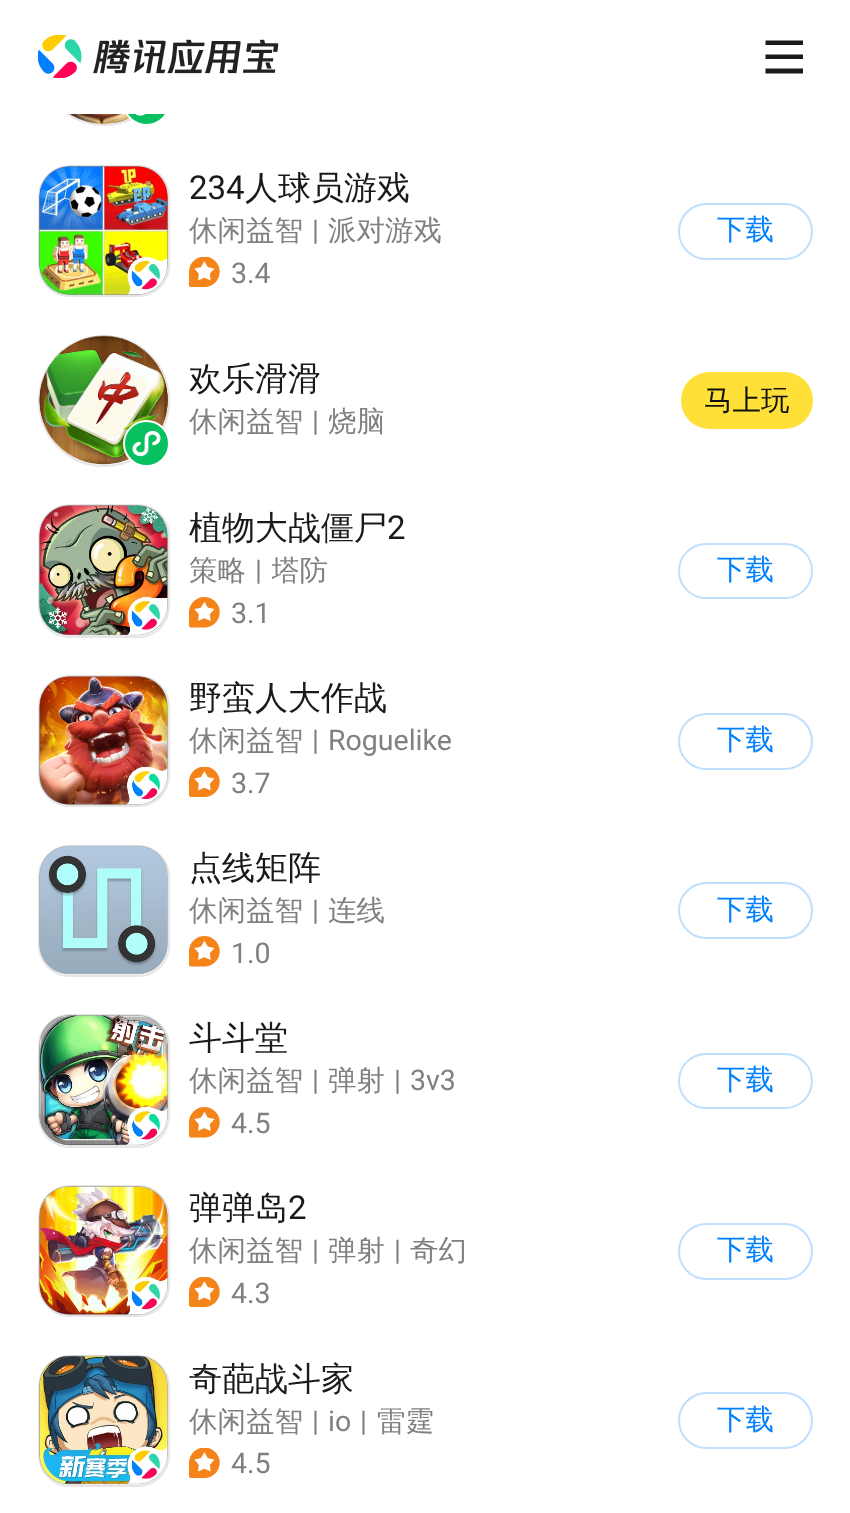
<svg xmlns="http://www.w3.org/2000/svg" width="850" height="1513">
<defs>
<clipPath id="clip1"><rect x="329" y="404" width="55" height="37"/></clipPath>
<clipPath id="clip2"><rect x="272" y="552" width="57" height="38"/></clipPath>
<clipPath id="clip3"><rect x="329" y="893" width="55" height="37"/></clipPath>
<clipPath id="clip4"><rect x="329" y="1062" width="55" height="38"/></clipPath>
<clipPath id="clip5"><rect x="329" y="1232" width="55" height="39"/></clipPath>
</defs>
<rect width="100%" height="100%" fill="#fff"/>
<circle cx="104" cy="60" r="65" fill="none" stroke="#e6e6e6" stroke-width="2"/>
<image x="69" y="114" width="62" height="10" href="media/2.png"/>
<image x="128" y="114" width="37" height="10" href="media/3.png"/>
<rect x="124" y="81" width="45" height="44" rx="22" fill="none" stroke="#fff" stroke-width="2"/>
<rect x="38" width="132" height="114" fill="#fff"/>
<image x="38" y="35" width="241" height="43" href="media/1.png"/>
<path d="M765.5 40.5h37.5v4.5h-37.5zm0 14h37.5v4.5h-37.5zm37.5 14h-37.5v5h37.5z" fill="#1a1a1a" fill-rule="evenodd"/>
<rect x="39" y="166" width="130" height="130" rx="31" fill="none" stroke="#e6e6e6" stroke-width="2"/>
<image x="39" y="166" width="129" height="129" href="media/4.png"/>
<text x="189" y="199" style="font-family:Roboto;font-size:33px;fill:#1a1a1a">234</text>
<text x="245" y="199" style="font-family:WenQuanYi Zen Hei;font-size:33px;font-weight:500;fill:#1a1a1a">人球员游戏</text>
<text x="189" y="240" style="font-family:WenQuanYi Zen Hei;font-size:28.5px;font-weight:500;fill:#808080">休闲益智</text>
<text x="312" y="240" style="font-family:Roboto;font-size:28.5px;fill:#808080">|</text>
<text x="328" y="240" style="font-family:WenQuanYi Zen Hei;font-size:28.5px;font-weight:500;fill:#808080">派对游戏</text>
<image x="189" y="257" width="31" height="30" href="media/5.png"/>
<text x="231" y="283" style="font-family:Roboto;font-size:28.5px;fill:#808080">3.4</text>
<rect x="679" y="204" width="133" height="55" rx="27.5" fill="none" stroke="#bfdfff" stroke-width="2"/>
<text x="717" y="239" style="font-family:WenQuanYi Zen Hei;font-size:28.5px;font-weight:500;fill:#0080ff">下载</text>
<circle cx="104" cy="401" r="65" fill="none" stroke="#e6e6e6" stroke-width="2"/>
<image x="39" y="335" width="129" height="130" href="media/6.png"/>
<image x="125" y="422" width="43" height="43" href="media/7.png"/>
<circle cx="146.5" cy="443.5" r="22.5" fill="none" stroke="#fff" stroke-width="2"/>
<text x="189" y="390" style="font-family:WenQuanYi Zen Hei;font-size:33px;font-weight:500;fill:#1a1a1a">欢乐滑滑</text>
<text x="189" y="431" style="font-family:WenQuanYi Zen Hei;font-size:28.5px;font-weight:500;fill:#808080">休闲益智</text>
<text x="312" y="431" style="font-family:Roboto;font-size:28.5px;fill:#808080">|</text>
<g clip-path="url(#clip1)">
<text x="328" y="431" style="font-family:WenQuanYi Zen Hei;font-size:28.5px;font-weight:500;fill:#808080">烧脑</text>
</g>
<rect x="681" y="372" width="132" height="57" rx="28.5" fill="#ffe038"/>
<text x="704" y="410" style="font-family:WenQuanYi Zen Hei;font-size:28.5px;font-weight:500;fill:#0f0f0f">马上玩</text>
<rect x="39" y="505" width="130" height="132" rx="31" fill="none" stroke="#e6e6e6" stroke-width="2"/>
<image x="39" y="505" width="129" height="131" href="media/8.png"/>
<text x="189" y="539" style="font-family:WenQuanYi Zen Hei;font-size:33px;font-weight:500;fill:#1a1a1a">植物大战僵尸</text>
<text x="387" y="539" style="font-family:Roboto;font-size:33px;fill:#1a1a1a">2</text>
<text x="189" y="580" style="font-family:WenQuanYi Zen Hei;font-size:28.5px;font-weight:500;fill:#808080">策略</text>
<text x="255" y="580" style="font-family:Roboto;font-size:28.5px;fill:#808080">|</text>
<g clip-path="url(#clip2)">
<text x="271" y="580" style="font-family:WenQuanYi Zen Hei;font-size:28.5px;font-weight:500;fill:#808080">塔防</text>
</g>
<image x="189" y="597" width="31" height="31" href="media/9.png"/>
<text x="231" y="623" style="font-family:Roboto;font-size:28.5px;fill:#808080">3.1</text>
<rect x="679" y="544" width="133" height="54" rx="27" fill="none" stroke="#bfdfff" stroke-width="2"/>
<text x="717" y="579" style="font-family:WenQuanYi Zen Hei;font-size:28.5px;font-weight:500;fill:#0080ff">下载</text>
<rect x="39" y="676" width="130" height="130" rx="31" fill="none" stroke="#e6e6e6" stroke-width="2"/>
<image x="39" y="676" width="129" height="129" href="media/10.png"/>
<text x="189" y="709" style="font-family:WenQuanYi Zen Hei;font-size:33px;font-weight:500;fill:#1a1a1a">野蛮人大作战</text>
<text x="189" y="750" style="font-family:WenQuanYi Zen Hei;font-size:28.5px;font-weight:500;fill:#808080">休闲益智</text>
<text x="312" y="750" style="font-family:Roboto;font-size:28.5px;fill:#808080">|</text>
<text x="328" y="750" style="font-family:Roboto;font-size:28.5px;fill:#808080">Roguelike</text>
<image x="189" y="767" width="31" height="30" href="media/5.png"/>
<text x="231" y="793" style="font-family:Roboto;font-size:28.5px;fill:#808080">3.7</text>
<rect x="679" y="714" width="133" height="55" rx="27.5" fill="none" stroke="#bfdfff" stroke-width="2"/>
<text x="717" y="749" style="font-family:WenQuanYi Zen Hei;font-size:28.5px;font-weight:500;fill:#0080ff">下载</text>
<rect x="39" y="846" width="130" height="130" rx="31" fill="none" stroke="#e6e6e6" stroke-width="2"/>
<image x="39" y="845" width="129" height="130" href="media/11.png"/>
<text x="189" y="879" style="font-family:WenQuanYi Zen Hei;font-size:33px;font-weight:500;fill:#1a1a1a">点线矩阵</text>
<text x="189" y="920" style="font-family:WenQuanYi Zen Hei;font-size:28.5px;font-weight:500;fill:#808080">休闲益智</text>
<text x="312" y="920" style="font-family:Roboto;font-size:28.5px;fill:#808080">|</text>
<g clip-path="url(#clip3)">
<text x="328" y="920" style="font-family:WenQuanYi Zen Hei;font-size:28.5px;font-weight:500;fill:#808080">连线</text>
</g>
<image x="189" y="936" width="31" height="31" href="media/9.png"/>
<text x="231" y="963" style="font-family:Roboto;font-size:28.5px;fill:#808080">1.0</text>
<rect x="679" y="883" width="133" height="55" rx="27.5" fill="none" stroke="#bfdfff" stroke-width="2"/>
<text x="717" y="919" style="font-family:WenQuanYi Zen Hei;font-size:28.5px;font-weight:500;fill:#0080ff">下载</text>
<rect x="39" y="1015" width="130" height="132" rx="31" fill="none" stroke="#e6e6e6" stroke-width="2"/>
<image x="39" y="1015" width="129" height="131" href="media/12.png"/>
<text x="189" y="1049" style="font-family:WenQuanYi Zen Hei;font-size:33px;font-weight:500;fill:#1a1a1a">斗斗堂</text>
<text x="189" y="1090" style="font-family:WenQuanYi Zen Hei;font-size:28.5px;font-weight:500;fill:#808080">休闲益智</text>
<text x="312" y="1090" style="font-family:Roboto;font-size:28.5px;fill:#808080">|</text>
<g clip-path="url(#clip4)">
<text x="328" y="1090" style="font-family:WenQuanYi Zen Hei;font-size:28.5px;font-weight:500;fill:#808080">弹射</text>
</g>
<text x="394" y="1090" style="font-family:Roboto;font-size:28.5px;fill:#808080">|</text>
<text x="410" y="1090" style="font-family:Roboto;font-size:28.5px;fill:#808080">3v3</text>
<image x="189" y="1107" width="31" height="31" href="media/9.png"/>
<text x="231" y="1133" style="font-family:Roboto;font-size:28.5px;fill:#808080">4.5</text>
<rect x="679" y="1054" width="133" height="54" rx="27" fill="none" stroke="#bfdfff" stroke-width="2"/>
<text x="717" y="1089" style="font-family:WenQuanYi Zen Hei;font-size:28.5px;font-weight:500;fill:#0080ff">下载</text>
<rect x="39" y="1186" width="130" height="130" rx="31" fill="none" stroke="#e6e6e6" stroke-width="2"/>
<image x="39" y="1186" width="129" height="129" href="media/13.png"/>
<text x="189" y="1219" style="font-family:WenQuanYi Zen Hei;font-size:33px;font-weight:500;fill:#1a1a1a">弹弹岛</text>
<text x="288" y="1219" style="font-family:Roboto;font-size:33px;fill:#1a1a1a">2</text>
<text x="189" y="1260" style="font-family:WenQuanYi Zen Hei;font-size:28.5px;font-weight:500;fill:#808080">休闲益智</text>
<text x="312" y="1260" style="font-family:Roboto;font-size:28.5px;fill:#808080">|</text>
<g clip-path="url(#clip5)">
<text x="328" y="1260" style="font-family:WenQuanYi Zen Hei;font-size:28.5px;font-weight:500;fill:#808080">弹射</text>
</g>
<text x="394" y="1260" style="font-family:Roboto;font-size:28.5px;fill:#808080">|</text>
<text x="410" y="1260" style="font-family:WenQuanYi Zen Hei;font-size:28.5px;font-weight:500;fill:#808080">奇幻</text>
<image x="189" y="1277" width="31" height="30" href="media/5.png"/>
<text x="231" y="1303" style="font-family:Roboto;font-size:28.5px;fill:#808080">4.3</text>
<rect x="679" y="1224" width="133" height="55" rx="27.5" fill="none" stroke="#bfdfff" stroke-width="2"/>
<text x="717" y="1259" style="font-family:WenQuanYi Zen Hei;font-size:28.5px;font-weight:500;fill:#0080ff">下载</text>
<rect x="39" y="1356" width="130" height="130" rx="31" fill="none" stroke="#e6e6e6" stroke-width="2"/>
<image x="39" y="1355" width="129" height="130" href="media/14.png"/>
<text x="189" y="1390" style="font-family:WenQuanYi Zen Hei;font-size:33px;font-weight:500;fill:#1a1a1a">奇葩战斗家</text>
<text x="189" y="1431" style="font-family:WenQuanYi Zen Hei;font-size:28.5px;font-weight:500;fill:#808080">休闲益智</text>
<text x="312" y="1431" style="font-family:Roboto;font-size:28.5px;fill:#808080">|</text>
<text x="328" y="1431" style="font-family:Roboto;font-size:28.5px;fill:#808080">io</text>
<text x="360" y="1431" style="font-family:Roboto;font-size:28.5px;fill:#808080">|</text>
<text x="377" y="1431" style="font-family:WenQuanYi Zen Hei;font-size:28.5px;font-weight:500;fill:#808080">雷霆</text>
<image x="189" y="1448" width="31" height="30" href="media/5.png"/>
<text x="231" y="1473" style="font-family:Roboto;font-size:28.5px;fill:#808080">4.5</text>
<rect x="679" y="1393" width="133" height="55" rx="27.5" fill="none" stroke="#bfdfff" stroke-width="2"/>
<text x="717" y="1429" style="font-family:WenQuanYi Zen Hei;font-size:28.5px;font-weight:500;fill:#0080ff">下载</text>
</svg>
